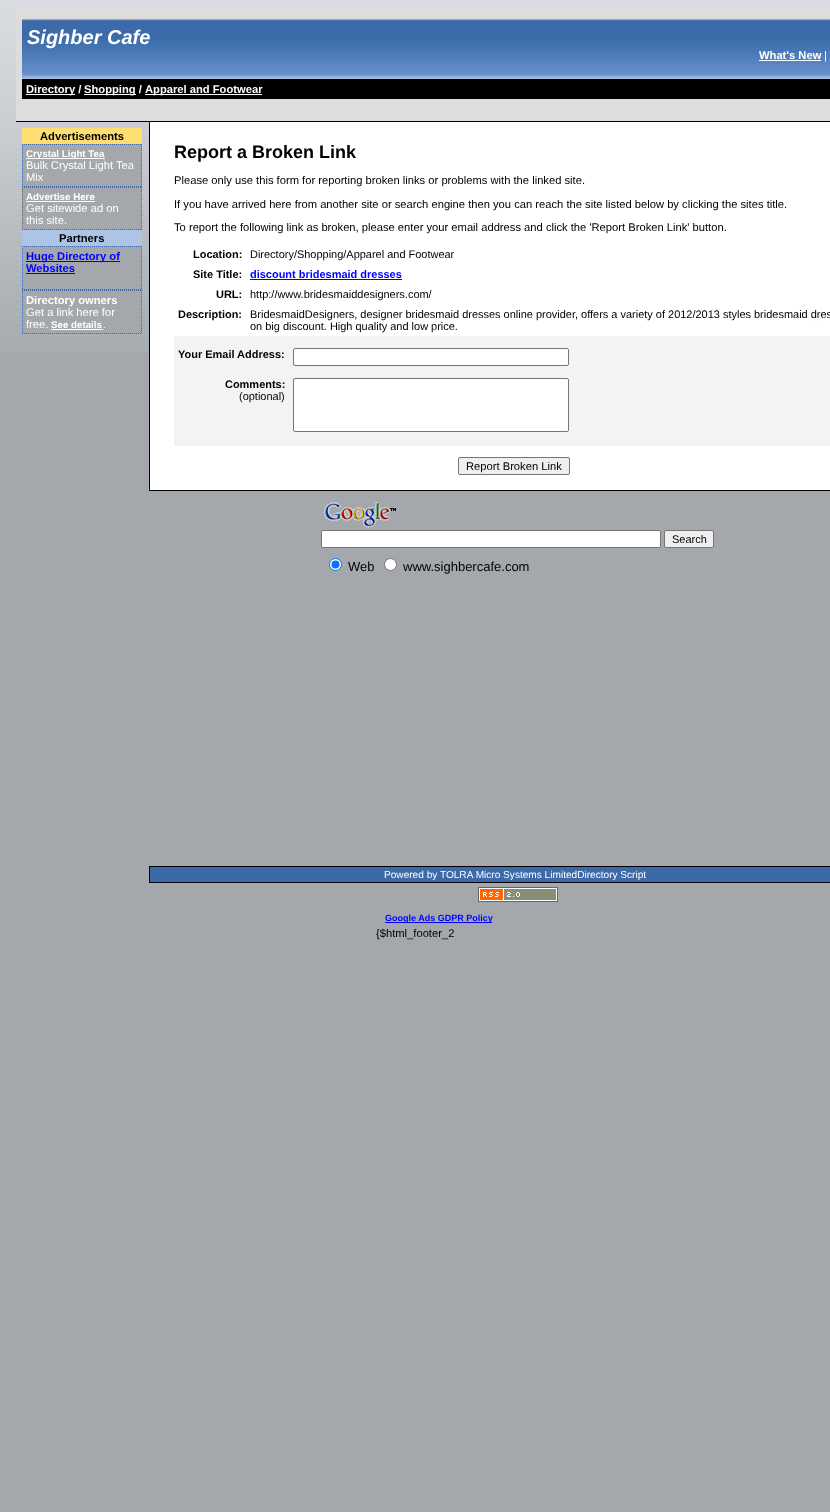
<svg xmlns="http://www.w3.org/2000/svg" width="830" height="1512">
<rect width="100%" height="100%" fill="#a4a8ac"/>
<image x="0" y="0" width="830" height="352" href="media/1.png"/>
<rect x="16" y="8" width="814" height="113" fill="#ddd"/>
<rect x="16" y="121" width="814" height="1" fill="#000"/>
<image x="22" y="19" width="808" height="60" href="media/2.png"/>
<text x="27" y="44" style="font-family:Liberation Sans;font-size:20px;font-weight:bold;font-style:italic;fill:#fff">Sighber Cafe</text>
<text x="759" y="59" style="font-family:Liberation Sans;font-size:11.2px;font-weight:bold;fill:#fff">What's New</text>
<rect x="759" y="60" width="62" height="1" fill="#fff"/>
<text x="824" y="59" style="font-family:Liberation Sans;font-size:11.2px;fill:#fff">|</text>
<rect x="22" y="79" width="808" height="20" fill="#000"/>
<rect x="26" y="94" width="49" height="1" fill="#fff"/>
<text x="26" y="93" style="font-family:Liberation Sans;font-size:11.2px;font-weight:bold;fill:#fff">Directory /</text>
<rect x="84" y="94" width="52" height="1" fill="#fff"/>
<text x="84" y="93" style="font-family:Liberation Sans;font-size:11.2px;font-weight:bold;fill:#fff">Shopping /</text>
<rect x="145" y="94" width="117" height="1" fill="#fff"/>
<text x="145" y="93" style="font-family:Liberation Sans;font-size:11.2px;font-weight:bold;fill:#fff">Apparel and Footwear</text>
<rect x="22" y="128" width="120" height="16" fill="#ffde71"/>
<text x="40" y="140" style="font-family:Liberation Sans;font-size:11.2px;font-weight:bold;fill:#000">Advertisements</text>
<rect x="22" y="144" width="120" height="86" fill="#a4a8ac"/>
<path d="M22 144.5h120" fill="none" stroke="#3c6aa8" stroke-dasharray="1 1"/>
<path d="M141.5 144v43" fill="none" stroke="#3c6aa8" stroke-dasharray="1 1"/>
<path d="M22 186.5h120" fill="none" stroke="#3c6aa8" stroke-dasharray="1 1"/>
<path d="M22.5 144v43" fill="none" stroke="#3c6aa8" stroke-dasharray="1 1"/>
<rect x="26" y="158" width="79" height="1" fill="#fff"/>
<text x="26" y="157" style="font-family:Liberation Sans;font-size:9.75px;font-weight:bold;fill:#fff">Crystal Light Tea</text>
<text x="26" y="169" style="font-family:Liberation Sans;font-size:11.2px;fill:#fff">Bulk Crystal Light Tea</text>
<text x="26" y="181" style="font-family:Liberation Sans;font-size:11.2px;fill:#fff">Mix</text>
<path d="M22 187.5h120" fill="none" stroke="#3c6aa8" stroke-dasharray="1 1"/>
<path d="M141.5 187v43" fill="none" stroke="#3c6aa8" stroke-dasharray="1 1"/>
<path d="M22 229.5h120" fill="none" stroke="#3c6aa8" stroke-dasharray="1 1"/>
<path d="M22.5 187v43" fill="none" stroke="#3c6aa8" stroke-dasharray="1 1"/>
<text x="26" y="200" style="font-family:Liberation Sans;font-size:9.75px;font-weight:bold;fill:#fff">Advertise Here</text>
<rect x="26" y="201" width="69" height="1" fill="#fff"/>
<text x="26" y="212" style="font-family:Liberation Sans;font-size:11.2px;fill:#fff">Get sitewide ad on</text>
<text x="26" y="224" style="font-family:Liberation Sans;font-size:11.2px;fill:#fff">this site.</text>
<rect x="22" y="230" width="120" height="16" fill="#acc4e6"/>
<text x="59" y="242" style="font-family:Liberation Sans;font-size:11.2px;font-weight:bold;fill:#000">Partners</text>
<rect x="22" y="246" width="120" height="88" fill="#a4a8ac"/>
<path d="M22 246.5h120" fill="none" stroke="#3c6aa8" stroke-dasharray="1 1"/>
<path d="M141.5 246v44" fill="none" stroke="#3c6aa8" stroke-dasharray="1 1"/>
<path d="M22 289.5h120" fill="none" stroke="#3c6aa8" stroke-dasharray="1 1"/>
<path d="M22.5 246v44" fill="none" stroke="#3c6aa8" stroke-dasharray="1 1"/>
<rect x="26" y="261" width="94" height="1" fill="#00f"/>
<text x="26" y="260" style="font-family:Liberation Sans;font-size:11.2px;font-weight:bold;fill:#00f">Huge Directory of</text>
<text x="26" y="272" style="font-family:Liberation Sans;font-size:11.2px;font-weight:bold;fill:#00f">Websites</text>
<rect x="26" y="273" width="49" height="1" fill="#00f"/>
<path d="M22 290.5h120" fill="none" stroke="#3c6aa8" stroke-dasharray="1 1"/>
<path d="M141.5 290v44" fill="none" stroke="#3c6aa8" stroke-dasharray="1 1"/>
<path d="M22 333.5h120" fill="none" stroke="#3c6aa8" stroke-dasharray="1 1"/>
<path d="M22.5 290v44" fill="none" stroke="#3c6aa8" stroke-dasharray="1 1"/>
<text x="26" y="304" style="font-family:Liberation Sans;font-size:11.2px;font-weight:bold;fill:#fff">Directory owners</text>
<text x="26" y="316" style="font-family:Liberation Sans;font-size:11.2px;fill:#fff">Get a link here for</text>
<text x="26" y="328" style="font-family:Liberation Sans;font-size:11.2px;fill:#fff">free.</text>
<text x="51" y="328" style="font-family:Liberation Sans;font-size:9.75px;font-weight:bold;fill:#fff">See details</text>
<text x="103" y="328" style="font-family:Liberation Sans;font-size:9px;fill:#fff">.</text>
<rect x="51" y="329" width="52" height="1" fill="#fff"/>
<rect x="150" y="122" width="680" height="368" fill="#fff"/>
<rect x="149" y="490" width="681" height="1" fill="#000"/>
<rect x="149" y="122" width="1" height="369" fill="#000"/>
<image x="768" y="312" width="62" height="24" href="media/3.png"/>
<text x="174" y="158" style="font-family:Liberation Sans;font-size:18px;font-weight:bold;fill:#000">Report a Broken Link</text>
<text x="174" y="184" style="font-family:Liberation Sans;font-size:11.2px;fill:#000">Please only use this form for reporting broken links or problems with the linked site.</text>
<text x="174" y="208" style="font-family:Liberation Sans;font-size:11.2px;fill:#000">If you have arrived here from another site or search engine then you can reach the site listed below by clicking the sites title.</text>
<text x="174" y="231" style="font-family:Liberation Sans;font-size:11.2px;fill:#000">To report the following link as broken, please enter your email address and click the 'Report Broken Link' button.</text>
<text x="193" y="258" style="font-family:Liberation Sans;font-size:10.98px;font-weight:bold;fill:#000">Location:</text>
<text x="250" y="258" style="font-family:Liberation Sans;font-size:10.98px;fill:#000">Directory/Shopping/Apparel and Footwear</text>
<text x="193" y="278" style="font-family:Liberation Sans;font-size:10.98px;font-weight:bold;fill:#000">Site Title:</text>
<text x="250" y="278" style="font-family:Liberation Sans;font-size:10.98px;font-weight:bold;fill:#00f">discount bridesmaid dresses</text>
<rect x="250" y="279" width="152" height="1" fill="#00f"/>
<text x="216" y="298" style="font-family:Liberation Sans;font-size:10.98px;font-weight:bold;fill:#000">URL:</text>
<text x="250" y="298" style="font-family:Liberation Sans;font-size:10.98px;fill:#000">http://www.bridesmaiddesigners.com/</text>
<text x="178" y="318" style="font-family:Liberation Sans;font-size:10.98px;font-weight:bold;fill:#000">Description:</text>
<text x="250" y="318" style="font-family:Liberation Sans;font-size:10.98px;fill:#000">BridesmaidDesigners, designer bridesmaid dresses online provider, offers a variety of 2012/2013 styles bridesmaid dres</text>
<text x="250" y="330" style="font-family:Liberation Sans;font-size:10.98px;fill:#000">on big discount. High quality and low price.</text>
<rect x="174" y="336" width="656" height="110" fill="#f3f3f3"/>
<text x="178" y="358" style="font-family:Liberation Sans;font-size:10.98px;font-weight:bold;fill:#000">Your Email Address:</text>
<rect x="293.5" y="348.5" width="275" height="17" rx="1.5" fill="#fff" stroke="#767676"/>
<text x="225" y="388" style="font-family:Liberation Sans;font-size:10.98px;font-weight:bold;fill:#000">Comments:</text>
<text x="239" y="400" style="font-family:Liberation Sans;font-size:10.98px;fill:#000">(optional)</text>
<rect x="293.5" y="378.5" width="275" height="53" rx="1.5" fill="#fff" stroke="#767676"/>
<rect x="458.5" y="457.5" width="111" height="17" rx="1.5" fill="#efefef" stroke="#767676"/>
<text x="466" y="470" style="font-family:Liberation Sans;font-size:11.2px;fill:#000">Report Broken Link</text>
<image x="323" y="502" width="73" height="26" href="media/4.png"/>
<rect x="321.5" y="530.5" width="339" height="17" rx="1.5" fill="#fff" stroke="#767676"/>
<rect x="664.5" y="530.5" width="49" height="17" rx="1.5" fill="#efefef" stroke="#767676"/>
<text x="672" y="543" style="font-family:Liberation Sans;font-size:11px;fill:#000">Search</text>
<circle cx="335.5" cy="564.5" r="6" fill="#fff" stroke="#0075ff"/>
<circle cx="335.5" cy="564.5" r="4" fill="#0075ff"/>
<text x="348" y="571" style="font-family:Liberation Sans;font-size:13px;fill:#000">Web</text>
<circle cx="390.5" cy="564.5" r="6" fill="#fff" stroke="#767676"/>
<text x="403" y="571" style="font-family:Liberation Sans;font-size:13px;fill:#000">www.sighbercafe.com</text>
<rect x="149.5" y="866.5" width="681" height="16" fill="#3c6aa8" stroke="#000"/>
<text x="384" y="878" style="font-family:Liberation Sans;font-size:10.1px;fill:#fff">Powered by TOLRA Micro Systems LimitedDirectory Script</text>
<image x="478" y="887" width="80" height="15" href="media/5.png"/>
<rect x="385" y="922" width="107" height="1" fill="#00f"/>
<text x="385" y="921" style="font-family:Liberation Sans;font-size:9px;font-weight:bold;fill:#00f">Google Ads GDPR Policy</text>
<text x="376" y="937" style="font-family:Liberation Sans;font-size:11.2px;fill:#000">{$html_footer_2</text>
</svg>
